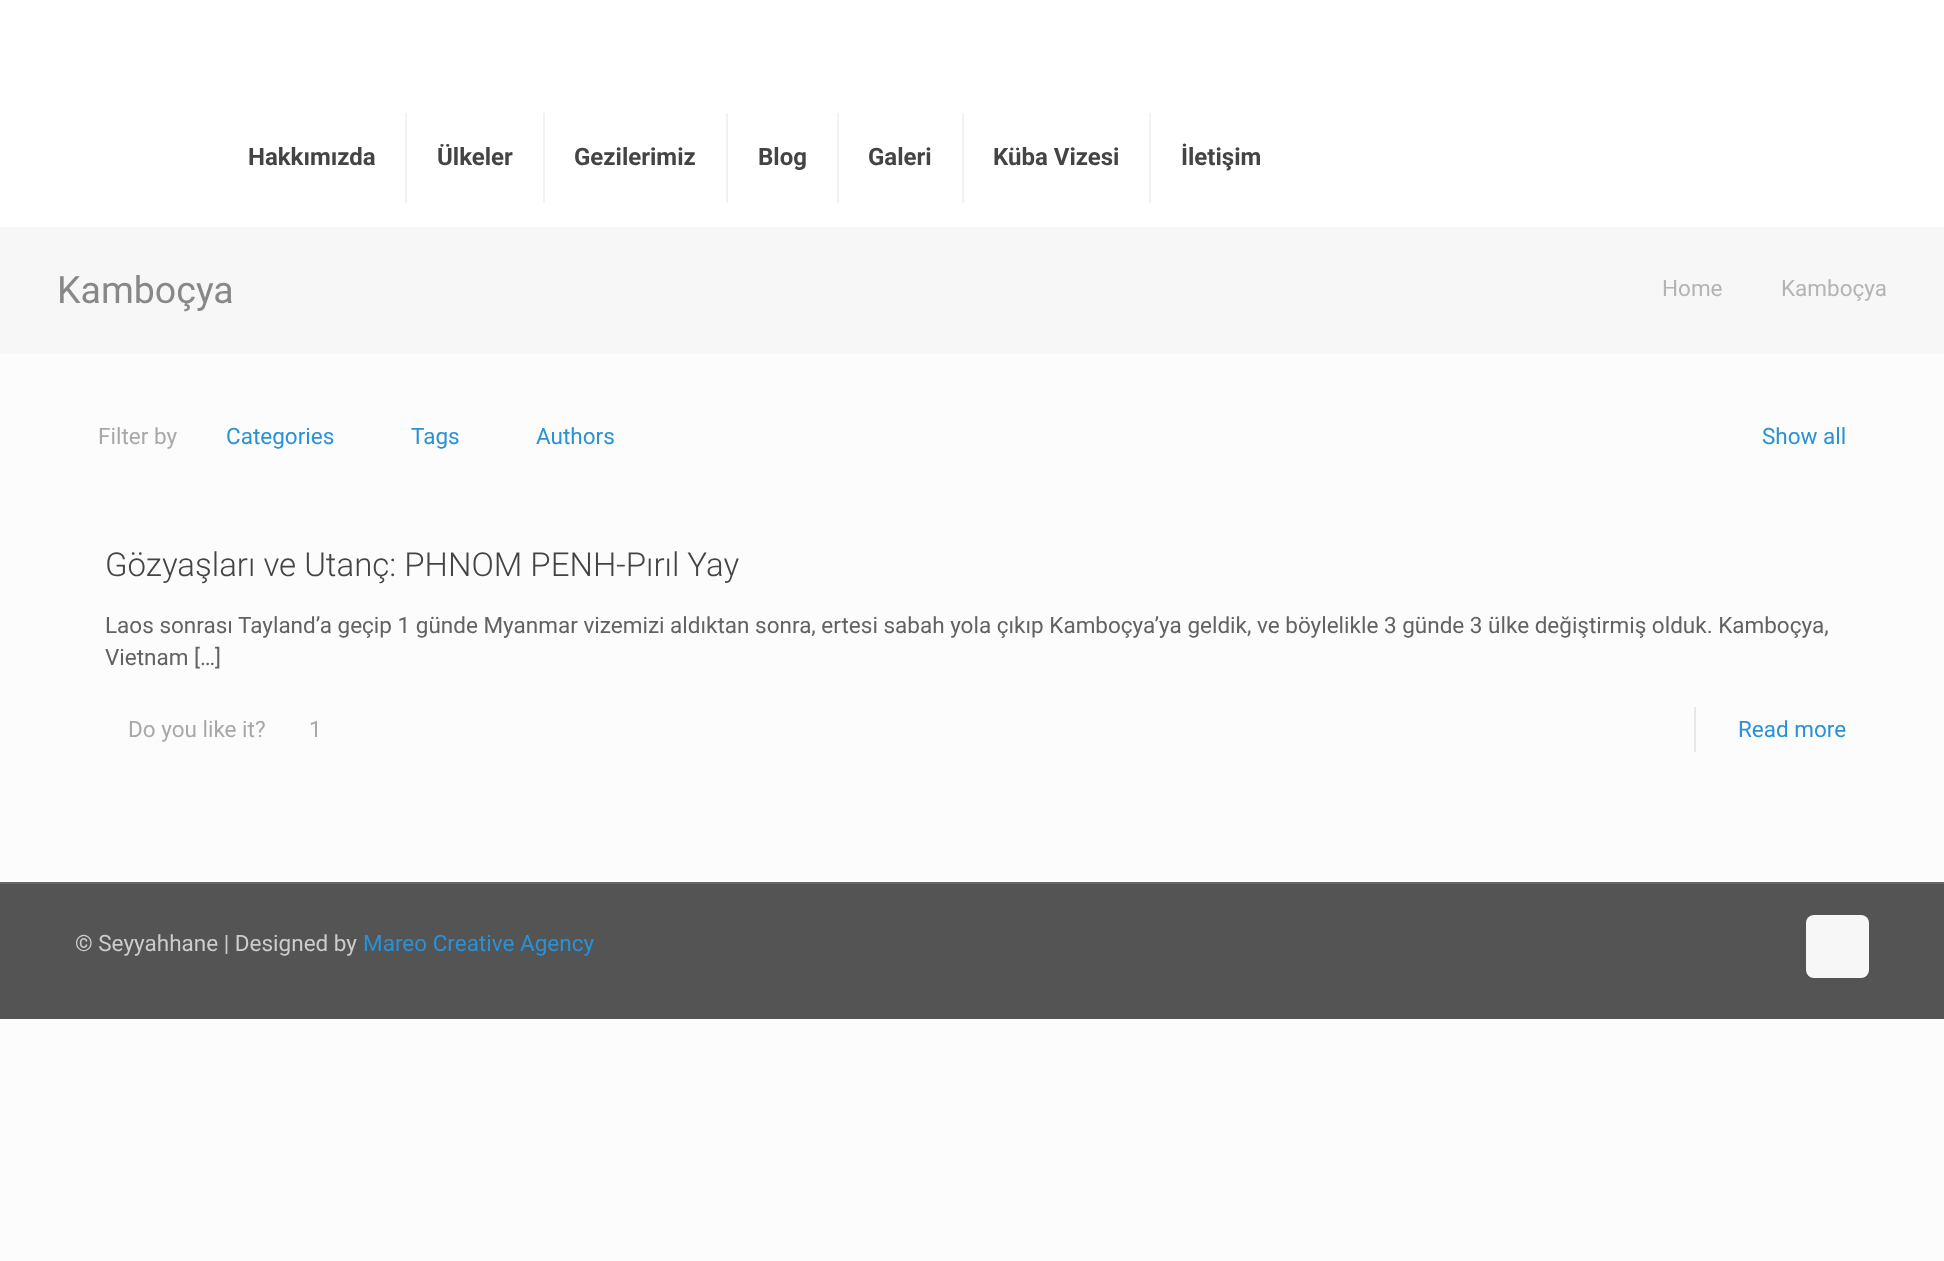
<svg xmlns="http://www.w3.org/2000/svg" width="1944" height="1261">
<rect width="100%" height="100%" fill="#fcfcfc"/>
<rect width="1944" height="227" fill="#fff"/>
<rect x="405" y="113" width="2" height="90" fill="#f2f2f2"/>
<text x="248" y="165" style="font-family:Roboto;font-size:24px;font-weight:bold;fill:#444">Hakkımızda</text>
<rect x="543" y="113" width="2" height="90" fill="#f2f2f2"/>
<text x="437" y="165" style="font-family:Roboto;font-size:24px;font-weight:bold;fill:#444">Ülkeler</text>
<rect x="726" y="113" width="2" height="90" fill="#f2f2f2"/>
<text x="574" y="165" style="font-family:Roboto;font-size:24px;font-weight:bold;fill:#444">Gezilerimiz</text>
<rect x="837" y="113" width="2" height="90" fill="#f2f2f2"/>
<text x="758" y="165" style="font-family:Roboto;font-size:24px;font-weight:bold;fill:#444">Blog</text>
<rect x="962" y="113" width="2" height="90" fill="#f2f2f2"/>
<text x="868" y="165" style="font-family:Roboto;font-size:24px;font-weight:bold;fill:#444">Galeri</text>
<rect x="1149" y="113" width="2" height="90" fill="#f2f2f2"/>
<text x="993" y="165" style="font-family:Roboto;font-size:24px;font-weight:bold;fill:#444">Küba Vizesi</text>
<text x="1181" y="165" style="font-family:Roboto;font-size:24px;font-weight:bold;fill:#444">İletişim</text>
<rect y="227" width="1944" height="127" fill="#f7f7f7"/>
<text x="57" y="303" style="font-family:Roboto;font-size:37.5px;fill:#888">Kamboçya</text>
<text x="1662" y="296" style="font-family:Roboto;font-size:22.5px;fill:#b4b4b4">Home</text>
<text x="1781" y="296" style="font-family:Roboto;font-size:22.5px;fill:#b4b4b4">Kamboçya</text>
<text x="98" y="444" style="font-family:Roboto;font-size:22.5px;fill:#a8a8a8">Filter by</text>
<text x="226" y="444" style="font-family:Roboto;font-size:22.5px;fill:#2991d6">Categories</text>
<text x="411" y="444" style="font-family:Roboto;font-size:22.5px;fill:#2991d6">Tags</text>
<text x="536" y="444" style="font-family:Roboto;font-size:22.5px;fill:#2991d6">Authors</text>
<text x="1762" y="444" style="font-family:Roboto;font-size:22.5px;fill:#2991d6">Show all</text>
<text x="105" y="576" style="font-family:Roboto;font-size:33px;font-weight:300;fill:#444">Gözyaşları ve Utanç: PHNOM PENH-Pırıl Yay</text>
<text x="105" y="633" style="font-family:Roboto;font-size:22.5px;fill:#626262">Laos sonrası Tayland’a geçip 1 günde Myanmar vizemizi aldıktan sonra, ertesi sabah yola çıkıp Kamboçya’ya geldik, ve böylelikle 3 günde 3 ülke değiştirmiş olduk. Kamboçya,</text>
<text x="105" y="665" style="font-family:Roboto;font-size:22.5px;fill:#626262">Vietnam […]</text>
<text x="128" y="737" style="font-family:Roboto;font-size:22.5px;fill:#a8a8a8">Do you like it?</text>
<text x="309" y="737" style="font-family:Roboto;font-size:22.5px;fill:#a8a8a8">1</text>
<rect x="1694" y="707" width="2" height="45" fill="#e8e8e8"/>
<text x="1738" y="737" style="font-family:Roboto;font-size:22.5px;fill:#2991d6">Read more</text>
<rect y="884" width="1944" height="135" fill="#545454"/>
<rect y="882" width="1944" height="2" fill="#656565"/>
<text x="75" y="951" style="font-family:Roboto;font-size:22.5px;fill:#ccc">© Seyyahhane | Designed by</text>
<text x="363" y="951" style="font-family:Roboto;font-size:22.5px;fill:#2991d6">Mareo Creative Agency</text>
<rect x="1806" y="915" width="63" height="63" rx="8" fill="#f7f7f7"/>
</svg>
